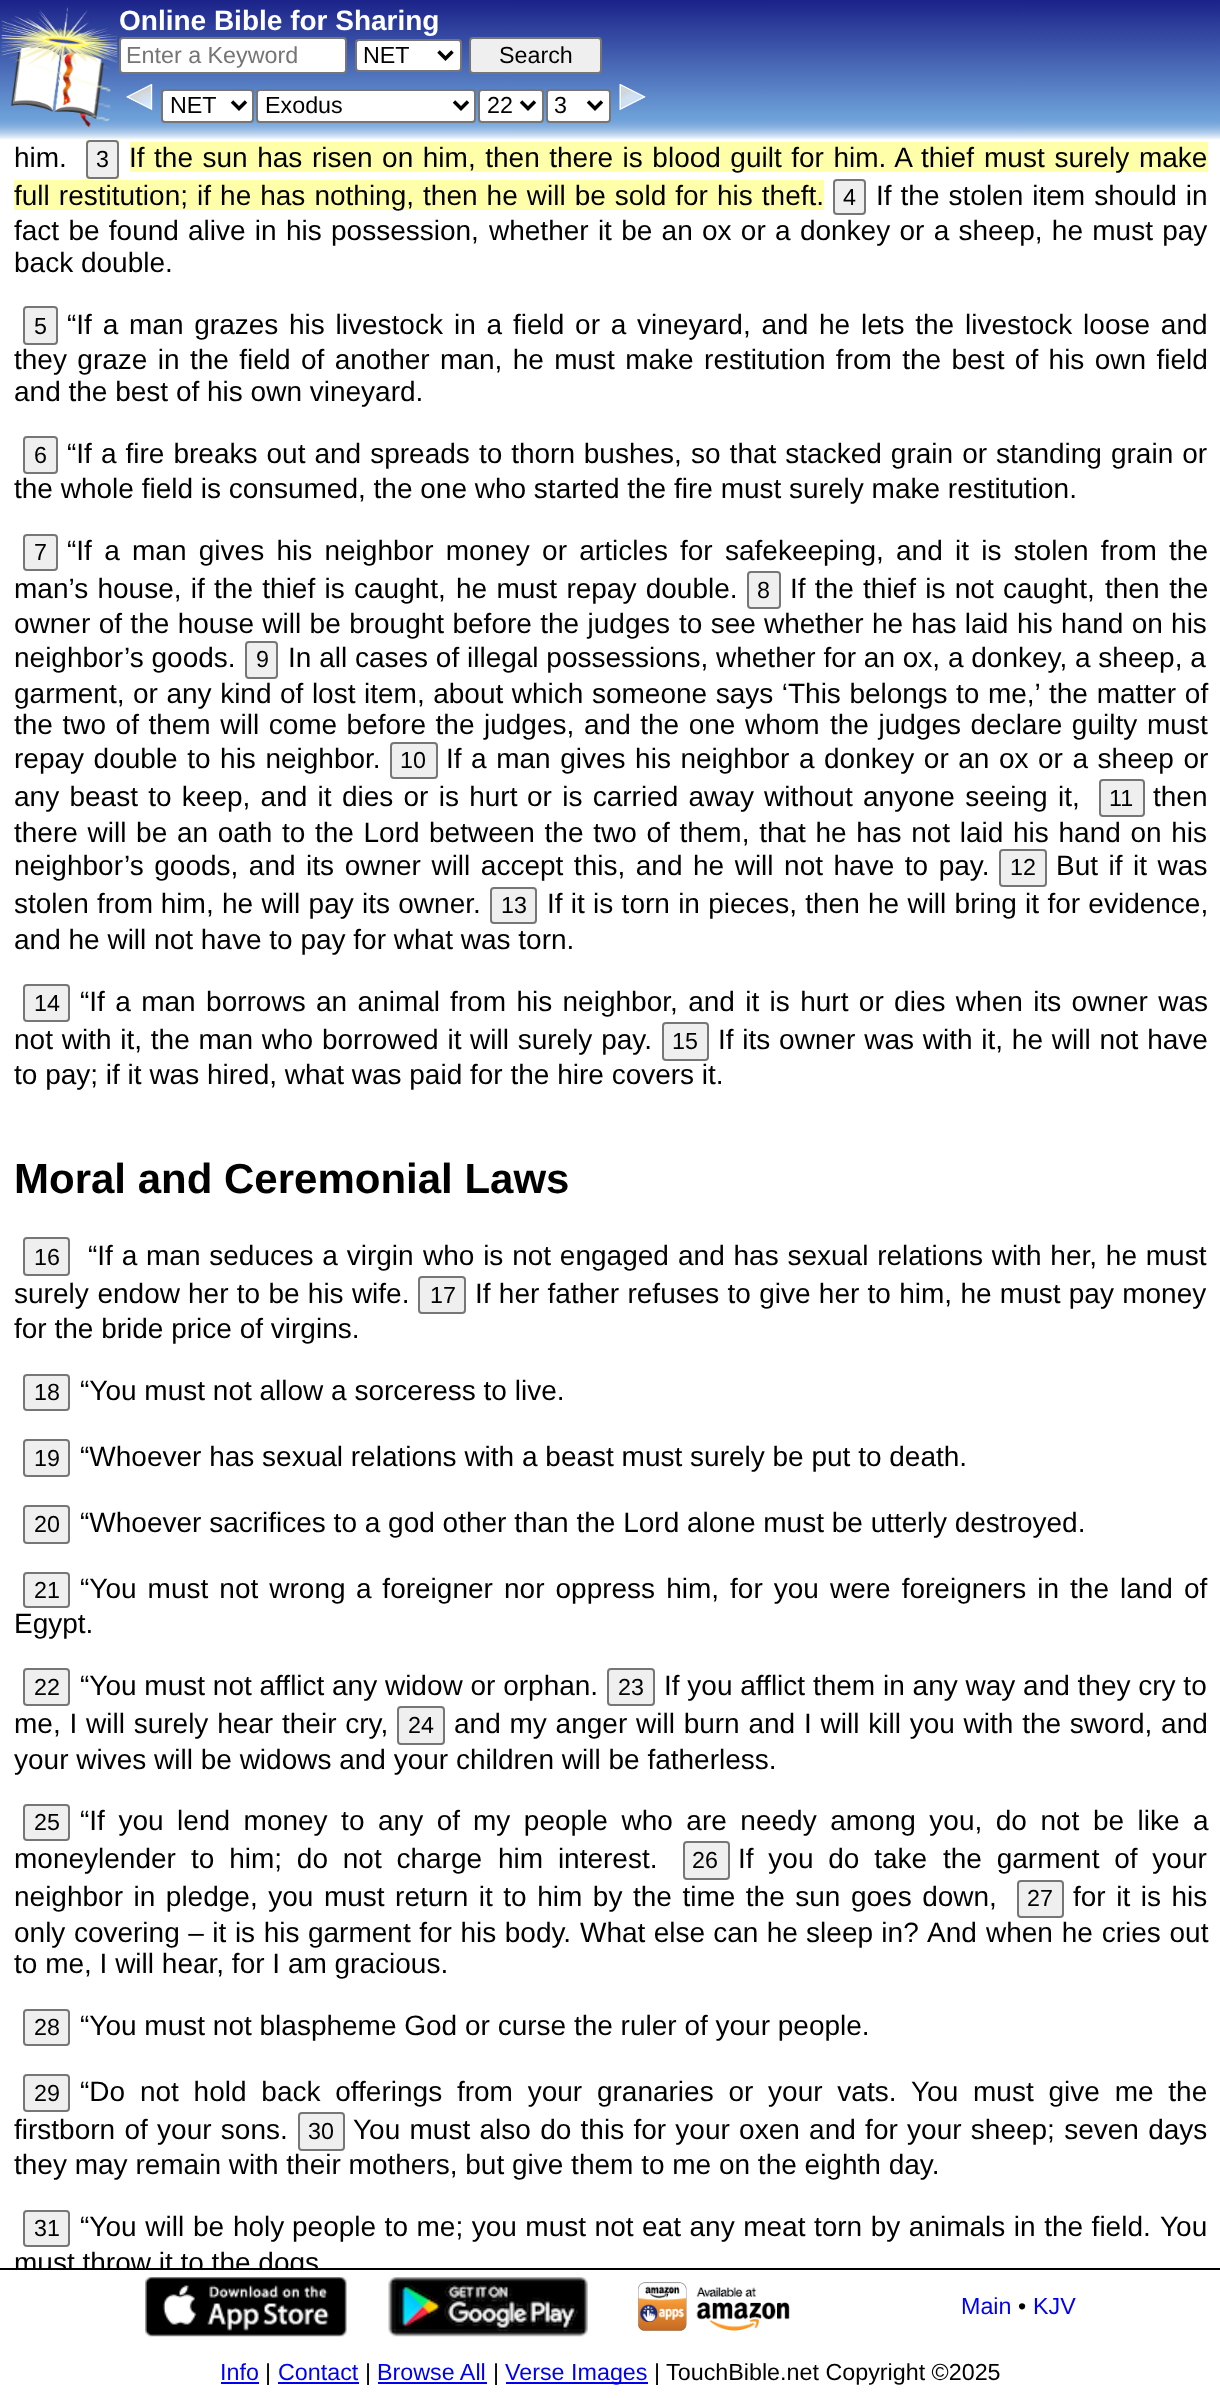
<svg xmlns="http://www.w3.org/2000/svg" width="1220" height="2398">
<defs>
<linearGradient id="g1" gradientUnits="userSpaceOnUse" x1="611" y1="0" x2="611" y2="140"><stop offset="0" stop-color="#1b2289"/><stop offset="0.83" stop-color="#6c9fd8"/><stop offset="1" stop-color="#fff"/></linearGradient>
<linearGradient id="g2" gradientUnits="userSpaceOnUse" x1="611" y1="0" x2="611" y2="140"><stop offset="0" stop-color="#1b2289"/><stop offset="0.83" stop-color="#6c9fd8"/><stop offset="1" stop-color="#6c9fd8" stop-opacity="0"/></linearGradient>
<clipPath id="clip1"><rect y="140" width="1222" height="2128"/></clipPath>
</defs>
<rect width="100%" height="100%" fill="#fff"/>
<rect y="116" width="1220" height="24" fill="url(#g1)"/>
<rect width="1220" height="139" fill="url(#g2)"/>
<image x="1" y="7" width="117" height="121" href="media/1.png"/>
<image x="10" y="56" width="101" height="66" href="media/2.png"/>
<text x="119" y="30" style="font-family:Liberation Sans;font-size:28px;font-weight:bold;fill:#fff">Online Bible for Sharing</text>
<rect x="120" y="38" width="226" height="35" rx="3" fill="#fff" stroke="#767676" stroke-width="2"/>
<text x="126" y="63" style="font-family:Liberation Sans;font-size:23.3px;fill:#757575">Enter a Keyword</text>
<rect x="356" y="40" width="105" height="31" rx="3" fill="#fff" stroke="#767676" stroke-width="2"/>
<path d="M438.5 51.5l7 7l7-7" fill="none" stroke="#000" stroke-width="3.5"/>
<text x="363" y="63" style="font-family:Liberation Sans;font-size:23.3px;fill:#000">NET</text>
<rect x="470" y="38" width="131" height="35" rx="3" fill="#efefef" stroke="#767676" stroke-width="2"/>
<text x="499" y="63" style="font-family:Liberation Sans;font-size:23.3px;fill:#000">Search</text>
<image x="126" y="84" width="27" height="27" href="media/3.png"/>
<rect x="162" y="90" width="91" height="32" rx="3" fill="#fff" stroke="#767676" stroke-width="2"/>
<path d="M232 101.5l7 7l7-7" fill="none" stroke="#000" stroke-width="3.5"/>
<text x="170" y="113" style="font-family:Liberation Sans;font-size:23.3px;fill:#000">NET</text>
<rect x="257" y="90" width="218" height="32" rx="3" fill="#fff" stroke="#767676" stroke-width="2"/>
<path d="M454 101.5l7 7l7-7" fill="none" stroke="#000" stroke-width="3.5"/>
<text x="265" y="113" style="font-family:Liberation Sans;font-size:23.3px;fill:#000">Exodus</text>
<rect x="479" y="90" width="64" height="32" rx="3" fill="#fff" stroke="#767676" stroke-width="2"/>
<path d="M521 101.5l7 7l7-7" fill="none" stroke="#000" stroke-width="3.5"/>
<text x="487" y="113" style="font-family:Liberation Sans;font-size:23.3px;fill:#000">22</text>
<rect x="547" y="90" width="63" height="32" rx="3" fill="#fff" stroke="#767676" stroke-width="2"/>
<path d="M588 101.5l7 7l7-7" fill="none" stroke="#000" stroke-width="3.5"/>
<text x="554" y="113" style="font-family:Liberation Sans;font-size:23.3px;fill:#000">3</text>
<image x="619" y="84" width="27" height="27" href="media/4.png"/>
<rect y="2268" width="1220" height="2" fill="#000"/>
<rect x="86" y="140" width="33" height="39" fill="#ffa"/>
<rect x="130" y="142" width="1078" height="30" fill="#ffa"/>
<rect x="14" y="180" width="810" height="30" fill="#ffa"/>
<rect x="87" y="141" width="31" height="37" rx="3" fill="#efefef" stroke="#767676" stroke-width="2"/>
<text x="96" y="167" style="font-family:Liberation Sans;font-size:23.3px;fill:#000">3</text>
<text x="129" y="167" word-spacing="1.75" style="font-family:Liberation Sans;font-size:28px;fill:#000">If the sun has risen on him, then there is blood guilt for him. A thief</text>
<text x="984" y="167" word-spacing="2" style="font-family:Liberation Sans;font-size:28px;fill:#000">must surely make</text>
<text x="14" y="205" word-spacing="1.25" style="font-family:Liberation Sans;font-size:28px;fill:#000">full restitution; if he has nothing, then he will be sold for his theft.</text>
<text x="14" y="167" style="font-family:Liberation Sans;font-size:28px;fill:#000">him.</text>
<rect x="834" y="180" width="31" height="34" rx="3" fill="#efefef" stroke="#767676" stroke-width="2"/>
<text x="843" y="205" style="font-family:Liberation Sans;font-size:23.3px;fill:#000">4</text>
<text x="876" y="205" word-spacing="1.25" style="font-family:Liberation Sans;font-size:28px;fill:#000">If the stolen item should in</text>
<text x="14" y="240" word-spacing="1.5" style="font-family:Liberation Sans;font-size:28px;fill:#000">fact be found</text>
<text x="188" y="240" word-spacing="1.5" style="font-family:Liberation Sans;font-size:28px;fill:#000">alive in his possession,</text>
<text x="489" y="240" word-spacing="1.5" style="font-family:Liberation Sans;font-size:28px;fill:#000">whether it be an ox or a donkey or a sheep, he must pay</text>
<text x="14" y="272" style="font-family:Liberation Sans;font-size:28px;fill:#000">back double.</text>
<rect x="24" y="307" width="33" height="37" rx="3" fill="#efefef" stroke="#767676" stroke-width="2"/>
<text x="34" y="334" style="font-family:Liberation Sans;font-size:23.3px;fill:#000">5</text>
<text x="67" y="334" word-spacing="3" style="font-family:Liberation Sans;font-size:28px;fill:#000">“If a man grazes</text>
<text x="289" y="334" word-spacing="3" style="font-family:Liberation Sans;font-size:28px;fill:#000">his livestock</text>
<text x="454" y="334" word-spacing="3" style="font-family:Liberation Sans;font-size:28px;fill:#000">in a field or a vineyard, and he lets the livestock loose and</text>
<text x="14" y="369" word-spacing="2.6" style="font-family:Liberation Sans;font-size:28px;fill:#000">they graze in the field of another man, he must make restitution from the best of his own field</text>
<text x="14" y="401" style="font-family:Liberation Sans;font-size:28px;fill:#000">and the best of his own vineyard.</text>
<rect x="24" y="437" width="33" height="36" rx="3" fill="#efefef" stroke="#767676" stroke-width="2"/>
<text x="34" y="463" style="font-family:Liberation Sans;font-size:23.3px;fill:#000">6</text>
<text x="67" y="463" word-spacing="1.25" style="font-family:Liberation Sans;font-size:28px;fill:#000">“If a fire breaks out and spreads</text>
<text x="479" y="463" word-spacing="1" style="font-family:Liberation Sans;font-size:28px;fill:#000">to thorn bushes,</text>
<text x="691" y="463" word-spacing="1.25" style="font-family:Liberation Sans;font-size:28px;fill:#000">so that stacked grain or standing grain or</text>
<text x="14" y="498" style="font-family:Liberation Sans;font-size:28px;fill:#000">the whole field is consumed, the one who started the fire must surely make restitution.</text>
<rect x="24" y="535" width="33" height="35" rx="3" fill="#efefef" stroke="#767676" stroke-width="2"/>
<text x="34" y="560" style="font-family:Liberation Sans;font-size:23.3px;fill:#000">7</text>
<text x="67" y="560" word-spacing="4.5" style="font-family:Liberation Sans;font-size:28px;fill:#000">“If a man gives his neighbor money or articles</text>
<text x="680" y="560" word-spacing="4.5" style="font-family:Liberation Sans;font-size:28px;fill:#000">for safekeeping,</text>
<text x="896" y="560" word-spacing="4.5" style="font-family:Liberation Sans;font-size:28px;fill:#000">and it is stolen from the</text>
<text x="14" y="598" word-spacing="1.5" style="font-family:Liberation Sans;font-size:28px;fill:#000">man’s house, if the thief is caught,</text>
<rect x="748" y="572" width="32" height="36" rx="3" fill="#efefef" stroke="#767676" stroke-width="2"/>
<text x="757" y="598" style="font-family:Liberation Sans;font-size:23.3px;fill:#000">8</text>
<text x="790" y="598" word-spacing="1.5" style="font-family:Liberation Sans;font-size:28px;fill:#000">If the thief is not caught,</text>
<text x="1105" y="598" word-spacing="2" style="font-family:Liberation Sans;font-size:28px;fill:#000">then the</text>
<text x="14" y="633" word-spacing="0.6" style="font-family:Liberation Sans;font-size:28px;fill:#000">owner of the house will be brought before the judges</text>
<text x="679" y="633" word-spacing="0.5" style="font-family:Liberation Sans;font-size:28px;fill:#000">to see</text>
<text x="764" y="633" word-spacing="0.5" style="font-family:Liberation Sans;font-size:28px;fill:#000">whether he has laid</text>
<text x="1017" y="633" word-spacing="0.5" style="font-family:Liberation Sans;font-size:28px;fill:#000">his hand on his</text>
<text x="14" y="667" style="font-family:Liberation Sans;font-size:28px;fill:#000">neighbor’s goods.</text>
<text x="456" y="598" word-spacing="1.5" style="font-family:Liberation Sans;font-size:28px;fill:#000">he must repay double.</text>
<rect x="246" y="642" width="31" height="36" rx="3" fill="#efefef" stroke="#767676" stroke-width="2"/>
<text x="256" y="667" style="font-family:Liberation Sans;font-size:23.3px;fill:#000">9</text>
<text x="288" y="667" style="font-family:Liberation Sans;font-size:28px;fill:#000">In all cases of illegal possessions, whether for an ox, a donkey, a sheep, a</text>
<text x="14" y="703" word-spacing="0.75" style="font-family:Liberation Sans;font-size:28px;fill:#000">garment, or any kind of lost item, about which someone says ‘This belongs to me,’</text>
<text x="1049" y="703" word-spacing="1" style="font-family:Liberation Sans;font-size:28px;fill:#000">the matter of</text>
<text x="14" y="734" word-spacing="1.75" style="font-family:Liberation Sans;font-size:28px;fill:#000">the two of them will come before the judges,</text>
<text x="584" y="734" word-spacing="1.75" style="font-family:Liberation Sans;font-size:28px;fill:#000">and the one whom</text>
<text x="830" y="734" word-spacing="1.75" style="font-family:Liberation Sans;font-size:28px;fill:#000">the judges declare guilty</text>
<text x="1147" y="734" style="font-family:Liberation Sans;font-size:28px;fill:#000">must</text>
<text x="14" y="768" word-spacing="1.75" style="font-family:Liberation Sans;font-size:28px;fill:#000">repay double to his neighbor.</text>
<rect x="391" y="743" width="46" height="35" rx="3" fill="#efefef" stroke="#767676" stroke-width="2"/>
<text x="400" y="768" style="font-family:Liberation Sans;font-size:23.3px;fill:#000">10</text>
<text x="446" y="768" word-spacing="1.75" style="font-family:Liberation Sans;font-size:28px;fill:#000">If a man gives his neighbor a donkey or an ox or a sheep or</text>
<text x="14" y="806" word-spacing="2.5" style="font-family:Liberation Sans;font-size:28px;fill:#000">any beast to keep, and it dies or is hurt</text>
<text x="527" y="806" word-spacing="2.5" style="font-family:Liberation Sans;font-size:28px;fill:#000">or is carried away</text>
<text x="764" y="806" word-spacing="2.5" style="font-family:Liberation Sans;font-size:28px;fill:#000">without anyone seeing it,</text>
<rect x="1100" y="780" width="44" height="36" rx="3" fill="#efefef" stroke="#767676" stroke-width="2"/>
<text x="1109" y="806" style="font-family:Liberation Sans;font-size:23.3px;fill:#000">11</text>
<text x="1153" y="806" style="font-family:Liberation Sans;font-size:28px;fill:#000">then</text>
<text x="14" y="842" word-spacing="1.9" style="font-family:Liberation Sans;font-size:28px;fill:#000">there will be an oath to the Lord</text>
<text x="429" y="842" word-spacing="1.9" style="font-family:Liberation Sans;font-size:28px;fill:#000">between the two of them, that he has not laid his hand on his</text>
<text x="14" y="875" word-spacing="2.75" style="font-family:Liberation Sans;font-size:28px;fill:#000">neighbor’s goods, and its owner will accept this, and he will not have to pay.</text>
<rect x="1000" y="850" width="46" height="36" rx="3" fill="#efefef" stroke="#767676" stroke-width="2"/>
<text x="1010" y="875" style="font-family:Liberation Sans;font-size:23.3px;fill:#000">12</text>
<text x="1056" y="875" word-spacing="2.75" style="font-family:Liberation Sans;font-size:28px;fill:#000">But if it was</text>
<text x="14" y="913" style="font-family:Liberation Sans;font-size:28px;fill:#000">stolen</text>
<text x="97" y="913" style="font-family:Liberation Sans;font-size:28px;fill:#000">from him,</text>
<text x="222" y="913" word-spacing="0.5" style="font-family:Liberation Sans;font-size:28px;fill:#000">he will pay its owner.</text>
<rect x="491" y="888" width="45" height="35" rx="3" fill="#efefef" stroke="#767676" stroke-width="2"/>
<text x="501" y="913" style="font-family:Liberation Sans;font-size:23.3px;fill:#000">13</text>
<text x="547" y="913" word-spacing="0.5" style="font-family:Liberation Sans;font-size:28px;fill:#000">If it is torn in pieces, then he will bring it for evidence,</text>
<text x="14" y="949" style="font-family:Liberation Sans;font-size:28px;fill:#000">and he will not have to pay for what was torn.</text>
<rect x="24" y="985" width="45" height="36" rx="3" fill="#efefef" stroke="#767676" stroke-width="2"/>
<text x="34" y="1011" style="font-family:Liberation Sans;font-size:23.3px;fill:#000">14</text>
<text x="80" y="1011" word-spacing="2.6" style="font-family:Liberation Sans;font-size:28px;fill:#000">“If a man borrows an animal</text>
<text x="450" y="1011" word-spacing="2.6" style="font-family:Liberation Sans;font-size:28px;fill:#000">from his neighbor, and it is hurt or dies when its owner was</text>
<rect x="663" y="1023" width="45" height="37" rx="3" fill="#efefef" stroke="#767676" stroke-width="2"/>
<text x="672" y="1049" style="font-family:Liberation Sans;font-size:23.3px;fill:#000">15</text>
<text x="718" y="1049" word-spacing="1" style="font-family:Liberation Sans;font-size:28px;fill:#000">If its owner was with it, he will not have</text>
<text x="14" y="1084" style="font-family:Liberation Sans;font-size:28px;fill:#000">to pay; if it was hired, what was paid for the hire covers it.</text>
<text x="14" y="1049" word-spacing="1" style="font-family:Liberation Sans;font-size:28px;fill:#000">not with it, the man who borrowed it</text>
<text x="470" y="1049" word-spacing="1" style="font-family:Liberation Sans;font-size:28px;fill:#000">will surely pay.</text>
<text x="14" y="1193" style="font-family:Liberation Sans;font-size:42px;font-weight:bold;fill:#000">Moral and Ceremonial Laws</text>
<rect x="24" y="1238" width="45" height="37" rx="3" fill="#efefef" stroke="#767676" stroke-width="2"/>
<text x="34" y="1265" style="font-family:Liberation Sans;font-size:23.3px;fill:#000">16</text>
<text x="88" y="1265" word-spacing="1" style="font-family:Liberation Sans;font-size:28px;fill:#000">“If a man seduces a virgin</text>
<text x="423" y="1265" word-spacing="1" style="font-family:Liberation Sans;font-size:28px;fill:#000">who is not engaged</text>
<text x="678" y="1265" word-spacing="1" style="font-family:Liberation Sans;font-size:28px;fill:#000">and has sexual relations with her, he must</text>
<text x="14" y="1303" word-spacing="1" style="font-family:Liberation Sans;font-size:28px;fill:#000">surely endow</text>
<rect x="419" y="1277" width="46" height="36" rx="3" fill="#efefef" stroke="#767676" stroke-width="2"/>
<text x="430" y="1303" style="font-family:Liberation Sans;font-size:23.3px;fill:#000">17</text>
<text x="475" y="1303" word-spacing="0.5" style="font-family:Liberation Sans;font-size:28px;fill:#000">If her father refuses to give her to him, he must pay money</text>
<text x="14" y="1338" style="font-family:Liberation Sans;font-size:28px;fill:#000">for the bride price of virgins.</text>
<text x="188" y="1303" word-spacing="0.5" style="font-family:Liberation Sans;font-size:28px;fill:#000">her to be his wife.</text>
<rect x="24" y="1375" width="45" height="35" rx="3" fill="#efefef" stroke="#767676" stroke-width="2"/>
<text x="34" y="1400" style="font-family:Liberation Sans;font-size:23.3px;fill:#000">18</text>
<text x="80" y="1400" style="font-family:Liberation Sans;font-size:28px;fill:#000">“You must not allow a sorceress to live.</text>
<rect x="24" y="1440" width="45" height="36" rx="3" fill="#efefef" stroke="#767676" stroke-width="2"/>
<text x="34" y="1466" style="font-family:Liberation Sans;font-size:23.3px;fill:#000">19</text>
<text x="80" y="1466" style="font-family:Liberation Sans;font-size:28px;fill:#000">“Whoever has sexual relations with a beast must surely be put to death.</text>
<rect x="24" y="1506" width="45" height="37" rx="3" fill="#efefef" stroke="#767676" stroke-width="2"/>
<text x="34" y="1532" style="font-family:Liberation Sans;font-size:23.3px;fill:#000">20</text>
<text x="80" y="1532" style="font-family:Liberation Sans;font-size:28px;fill:#000">“Whoever sacrifices to a god other than the Lord alone must be utterly destroyed.</text>
<rect x="24" y="1573" width="45" height="34" rx="3" fill="#efefef" stroke="#767676" stroke-width="2"/>
<text x="34" y="1598" style="font-family:Liberation Sans;font-size:23.3px;fill:#000">21</text>
<text x="80" y="1598" word-spacing="3.25" style="font-family:Liberation Sans;font-size:28px;fill:#000">“You must not wrong</text>
<text x="356" y="1598" word-spacing="3" style="font-family:Liberation Sans;font-size:28px;fill:#000">a foreigner</text>
<text x="504" y="1598" word-spacing="3.25" style="font-family:Liberation Sans;font-size:28px;fill:#000">nor oppress him, for you were foreigners in the land of</text>
<text x="14" y="1633" style="font-family:Liberation Sans;font-size:28px;fill:#000">Egypt.</text>
<rect x="608" y="1669" width="46" height="36" rx="3" fill="#efefef" stroke="#767676" stroke-width="2"/>
<text x="618" y="1695" style="font-family:Liberation Sans;font-size:23.3px;fill:#000">23</text>
<text x="664" y="1695" style="font-family:Liberation Sans;font-size:28px;fill:#000">If you afflict them</text>
<text x="883" y="1695" style="font-family:Liberation Sans;font-size:28px;fill:#000">in any way and they cry to</text>
<text x="14" y="1733" word-spacing="1" style="font-family:Liberation Sans;font-size:28px;fill:#000">me, I will surely hear</text>
<text x="282" y="1733" word-spacing="1" style="font-family:Liberation Sans;font-size:28px;fill:#000">their cry,</text>
<rect x="24" y="1669" width="45" height="36" rx="3" fill="#efefef" stroke="#767676" stroke-width="2"/>
<text x="34" y="1695" style="font-family:Liberation Sans;font-size:23.3px;fill:#000">22</text>
<text x="80" y="1695" style="font-family:Liberation Sans;font-size:28px;fill:#000">“You must not afflict</text>
<text x="332" y="1695" style="font-family:Liberation Sans;font-size:28px;fill:#000">any widow or orphan.</text>
<rect x="398" y="1707" width="46" height="37" rx="3" fill="#efefef" stroke="#767676" stroke-width="2"/>
<text x="408" y="1733" style="font-family:Liberation Sans;font-size:23.3px;fill:#000">24</text>
<text x="454" y="1733" word-spacing="1" style="font-family:Liberation Sans;font-size:28px;fill:#000">and my anger will burn and I will kill you with the sword, and</text>
<text x="14" y="1769" style="font-family:Liberation Sans;font-size:28px;fill:#000">your wives will be widows and your children will be fatherless.</text>
<rect x="24" y="1805" width="45" height="35" rx="3" fill="#efefef" stroke="#767676" stroke-width="2"/>
<text x="34" y="1830" style="font-family:Liberation Sans;font-size:23.3px;fill:#000">25</text>
<text x="80" y="1830" word-spacing="5.75" style="font-family:Liberation Sans;font-size:28px;fill:#000">“If you lend money to any of</text>
<text x="473" y="1830" word-spacing="5.75" style="font-family:Liberation Sans;font-size:28px;fill:#000">my people who are needy among you, do not be like a</text>
<text x="14" y="1868" style="font-family:Liberation Sans;font-size:28px;fill:#000">moneylender</text>
<rect x="684" y="1842" width="45" height="37" rx="3" fill="#efefef" stroke="#767676" stroke-width="2"/>
<text x="692" y="1868" style="font-family:Liberation Sans;font-size:23.3px;fill:#000">26</text>
<text x="738" y="1868" word-spacing="7" style="font-family:Liberation Sans;font-size:28px;fill:#000">If you do take</text>
<text x="943" y="1868" word-spacing="7" style="font-family:Liberation Sans;font-size:28px;fill:#000">the garment of your</text>
<text x="14" y="1906" word-spacing="2.75" style="font-family:Liberation Sans;font-size:28px;fill:#000">neighbor in pledge, you must return it to him by the time the sun goes down,</text>
<text x="191" y="1868" word-spacing="7" style="font-family:Liberation Sans;font-size:28px;fill:#000">to him; do not charge</text>
<text x="498" y="1868" word-spacing="7" style="font-family:Liberation Sans;font-size:28px;fill:#000">him interest.</text>
<rect x="1018" y="1881" width="45" height="36" rx="3" fill="#efefef" stroke="#767676" stroke-width="2"/>
<text x="1027" y="1906" style="font-family:Liberation Sans;font-size:23.3px;fill:#000">27</text>
<text x="1073" y="1906" word-spacing="2.75" style="font-family:Liberation Sans;font-size:28px;fill:#000">for it is his</text>
<text x="14" y="1942" word-spacing="0.75" style="font-family:Liberation Sans;font-size:28px;fill:#000">only covering – it is his garment for his body.</text>
<text x="580" y="1942" word-spacing="0.5" style="font-family:Liberation Sans;font-size:28px;fill:#000">What else can he sleep in?</text>
<text x="927" y="1942" style="font-family:Liberation Sans;font-size:28px;fill:#000">And</text>
<text x="986" y="1942" word-spacing="1" style="font-family:Liberation Sans;font-size:28px;fill:#000">when he cries out</text>
<text x="14" y="1973" style="font-family:Liberation Sans;font-size:28px;fill:#000">to me, I will hear, for I am gracious.</text>
<rect x="24" y="2010" width="45" height="35" rx="3" fill="#efefef" stroke="#767676" stroke-width="2"/>
<text x="34" y="2035" style="font-family:Liberation Sans;font-size:23.3px;fill:#000">28</text>
<text x="80" y="2035" style="font-family:Liberation Sans;font-size:28px;fill:#000">“You must not blaspheme God or curse the ruler of your people.</text>
<rect x="24" y="2075" width="45" height="36" rx="3" fill="#efefef" stroke="#767676" stroke-width="2"/>
<text x="34" y="2101" style="font-family:Liberation Sans;font-size:23.3px;fill:#000">29</text>
<text x="80" y="2101" word-spacing="7" style="font-family:Liberation Sans;font-size:28px;fill:#000">“Do not hold back offerings from your granaries or your vats.</text>
<text x="911" y="2101" word-spacing="7" style="font-family:Liberation Sans;font-size:28px;fill:#000">You must give me the</text>
<text x="14" y="2139" word-spacing="1.5" style="font-family:Liberation Sans;font-size:28px;fill:#000">firstborn of your sons.</text>
<rect x="299" y="2113" width="45" height="37" rx="3" fill="#efefef" stroke="#767676" stroke-width="2"/>
<text x="308" y="2139" style="font-family:Liberation Sans;font-size:23.3px;fill:#000">30</text>
<text x="353" y="2139" word-spacing="1.5" style="font-family:Liberation Sans;font-size:28px;fill:#000">You must also do this for your oxen and for your sheep; seven days</text>
<text x="14" y="2174" style="font-family:Liberation Sans;font-size:28px;fill:#000">they may remain with their mothers, but give them to me on the eighth day.</text>
<rect x="24" y="2211" width="45" height="35" rx="3" fill="#efefef" stroke="#767676" stroke-width="2"/>
<text x="34" y="2236" style="font-family:Liberation Sans;font-size:23.3px;fill:#000">31</text>
<text x="80" y="2236" word-spacing="1" style="font-family:Liberation Sans;font-size:28px;fill:#000">“You will be holy</text>
<text x="292" y="2236" word-spacing="0.75" style="font-family:Liberation Sans;font-size:28px;fill:#000">people to me; you must not eat any meat torn by animals in the field.</text>
<text x="1160" y="2236" style="font-family:Liberation Sans;font-size:28px;fill:#000">You</text>
<g clip-path="url(#clip1)">
<text x="14" y="2272" style="font-family:Liberation Sans;font-size:28px;fill:#000">must throw it to the dogs</text>
</g>
<image x="145" y="2277" width="202" height="60" href="media/5.png"/>
<image x="388" y="2277" width="200" height="60" href="media/6.png"/>
<image x="638" y="2282" width="152" height="49" href="media/7.png"/>
<text x="961" y="2314" style="font-family:Liberation Sans;font-size:23.3px;fill:#00e">Main</text>
<text x="1018" y="2314" style="font-family:Liberation Sans;font-size:23.3px;fill:#000">•</text>
<text x="1033" y="2314" style="font-family:Liberation Sans;font-size:23.3px;fill:#00e">KJV</text>
<text x="220" y="2380" style="font-family:Liberation Sans;font-size:23.3px;fill:#00e">Info</text>
<rect x="221" y="2382" width="38" height="2" fill="#00e"/>
<text x="265" y="2380" style="font-family:Liberation Sans;font-size:23.3px;fill:#000">|</text>
<text x="278" y="2380" style="font-family:Liberation Sans;font-size:23.3px;fill:#00e">Contact</text>
<rect x="278" y="2382" width="81" height="2" fill="#00e"/>
<text x="365" y="2380" style="font-family:Liberation Sans;font-size:23.3px;fill:#000">|</text>
<text x="377" y="2380" style="font-family:Liberation Sans;font-size:23.3px;fill:#00e">Browse All</text>
<rect x="378" y="2382" width="109" height="2" fill="#00e"/>
<text x="493" y="2380" style="font-family:Liberation Sans;font-size:23.3px;fill:#000">|</text>
<rect x="506" y="2382" width="142" height="2" fill="#00e"/>
<text x="505" y="2380" style="font-family:Liberation Sans;font-size:23.3px;fill:#00e">Verse Images</text>
<text x="654" y="2380" style="font-family:Liberation Sans;font-size:23.3px;fill:#000">| TouchBible.net Copyright ©2025</text>
</svg>
